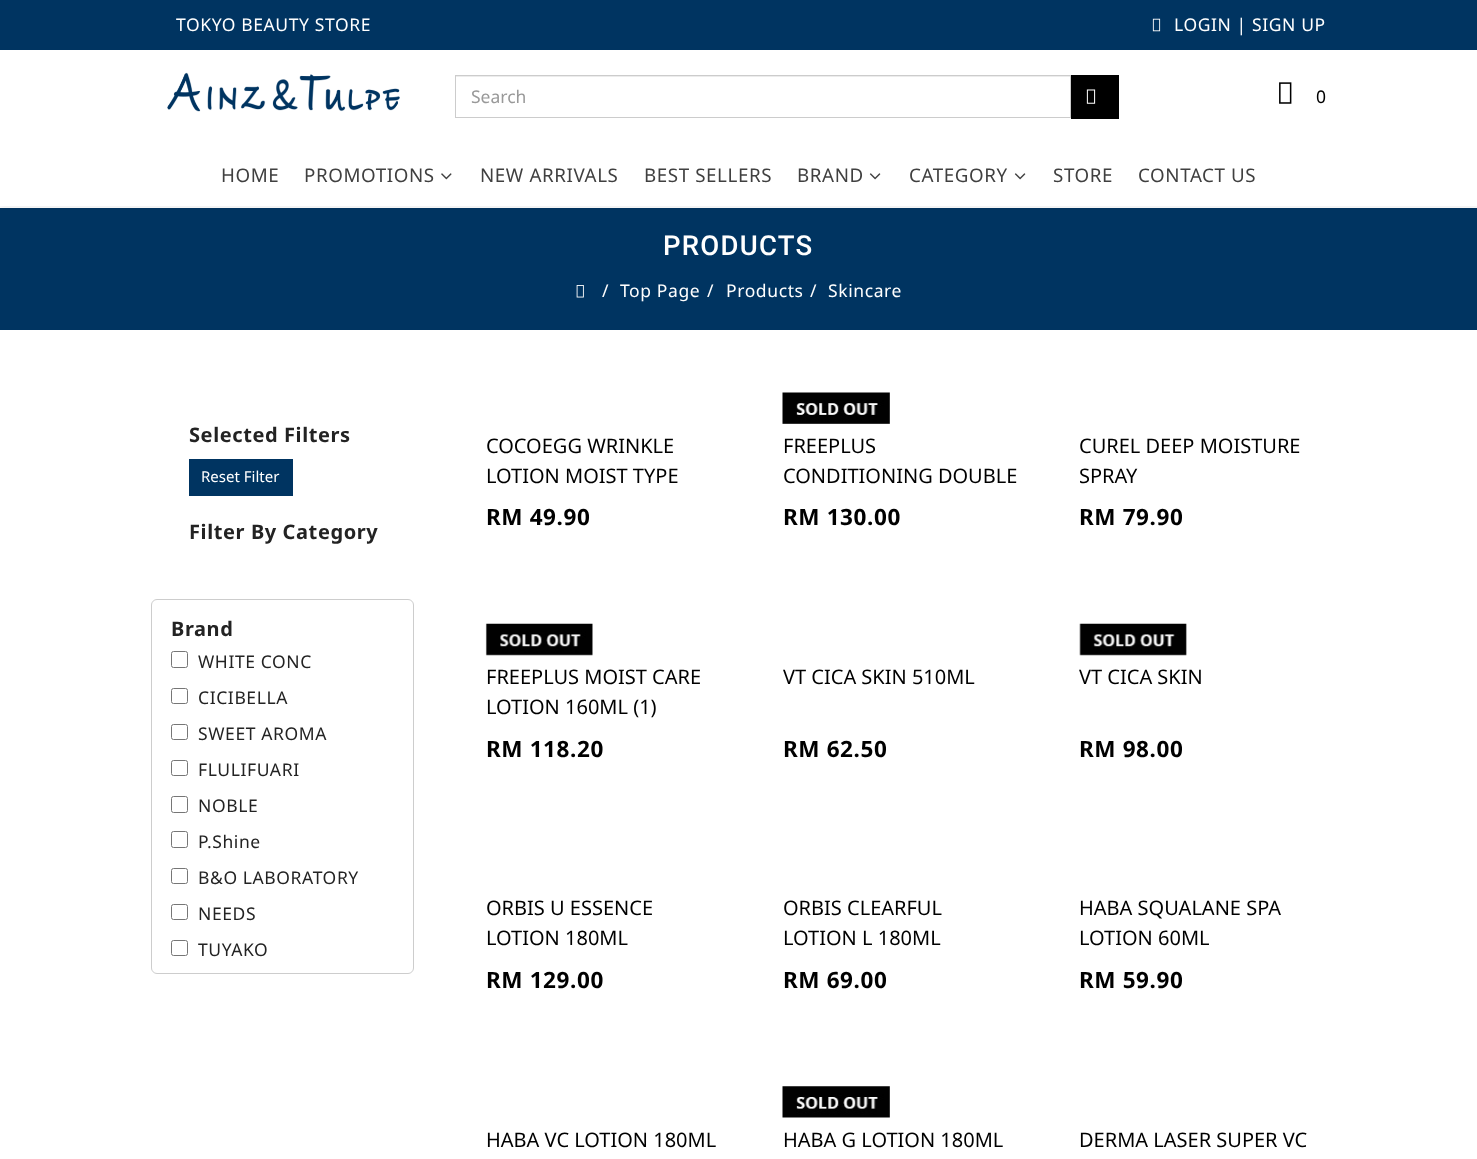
<svg xmlns="http://www.w3.org/2000/svg" width="1477" height="1159">
<defs>
<clipPath id="clip1"><rect x="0" y="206" width="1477" height="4"/></clipPath>
</defs>
<rect width="100%" height="100%" fill="#fff"/>
<rect width="1477" height="50" fill="#003461"/>
<text x="176" y="31" style="font-family:Noto Sans;font-size:17.5px;letter-spacing:0.6px;fill:#fff">TOKYO BEAUTY STORE</text>
<image x="1152" y="18" width="9" height="14" href="media/1.png"/>
<text x="1174" y="31" style="font-family:Noto Sans;font-size:17.5px;letter-spacing:0.6px;fill:#fff">LOGIN | SIGN UP</text>
<image x="167" y="72" width="233" height="40" href="media/2.png"/>
<rect x="456" y="76" width="614" height="1" fill="#ececec"/>
<rect x="455.5" y="75.5" width="615" height="42" fill="none" stroke="#ccc"/>
<text x="471" y="103" style="font-family:Noto Sans;font-size:17.5px;fill:#999">Search</text>
<rect x="1071" y="75" width="48" height="44" fill="#000"/>
<image x="1086" y="89" width="10" height="15" href="media/3.png"/>
<image x="1279" y="82" width="13" height="22" href="media/4.png"/>
<text x="1316" y="103" style="font-family:Noto Sans;font-size:17.5px;letter-spacing:0.6px;fill:#000">0</text>
<rect y="208" width="1477" height="122" fill="#003461"/>
<g clip-path="url(#clip1)">
<rect y="148" width="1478" height="62" fill="#0000000d" filter="blur(2px)"/>
</g>
<text x="221" y="182" style="font-family:Noto Sans;font-size:18.75px;letter-spacing:0.6px;fill:#404040">HOME</text>
<text x="304" y="182" style="font-family:Noto Sans;font-size:18.75px;letter-spacing:0.6px;fill:#404040">PROMOTIONS</text>
<image x="441" y="173" width="11" height="7" href="media/5.png"/>
<text x="480" y="182" style="font-family:Noto Sans;font-size:18.75px;letter-spacing:0.6px;fill:#404040">NEW ARRIVALS</text>
<text x="644" y="182" style="font-family:Noto Sans;font-size:18.75px;letter-spacing:0.6px;fill:#404040">BEST SELLERS</text>
<text x="797" y="182" style="font-family:Noto Sans;font-size:18.75px;letter-spacing:0.6px;fill:#404040">BRAND</text>
<image x="869" y="173" width="12" height="7" href="media/6.png"/>
<text x="909" y="182" style="font-family:Noto Sans;font-size:18.75px;letter-spacing:0.6px;fill:#404040">CATEGORY</text>
<image x="1014" y="173" width="12" height="7" href="media/6.png"/>
<text x="1053" y="182" style="font-family:Noto Sans;font-size:18.75px;letter-spacing:0.6px;fill:#404040">STORE</text>
<text x="1138" y="182" style="font-family:Noto Sans;font-size:18.75px;letter-spacing:0.6px;fill:#404040">CONTACT US</text>
<text x="663" y="255" style="font-family:Roboto;font-size:27.5px;font-weight:500;letter-spacing:1.25px;fill:#fff">PRODUCTS</text>
<image x="576" y="285" width="8" height="13" href="media/7.png"/>
<text x="602" y="297" style="font-family:Noto Sans;font-size:17.5px;letter-spacing:0.6px;fill:#fff">/</text>
<text x="620" y="297" style="font-family:Noto Sans;font-size:17.5px;letter-spacing:0.6px;fill:#fff">Top Page</text>
<text x="707" y="297" style="font-family:Noto Sans;font-size:17.5px;letter-spacing:0.6px;fill:#fff">/</text>
<text x="726" y="297" style="font-family:Noto Sans;font-size:17.5px;letter-spacing:0.6px;fill:#fff">Products</text>
<text x="810" y="297" style="font-family:Noto Sans;font-size:17.5px;letter-spacing:0.6px;fill:#fff">/</text>
<text x="828" y="297" style="font-family:Noto Sans;font-size:17.5px;letter-spacing:0.6px;fill:#fff">Skincare</text>
<text x="189" y="442" style="font-family:Noto Sans;font-size:20px;font-weight:bold;letter-spacing:0.6px;fill:#232323">Selected Filters</text>
<rect x="189" y="459" width="104" height="37" fill="#003461"/>
<text x="201" y="482" style="font-family:Noto Sans;font-size:15px;fill:#fff">Reset Filter</text>
<text x="189" y="539" style="font-family:Noto Sans;font-size:20px;font-weight:bold;letter-spacing:0.6px;fill:#232323">Filter By Category</text>
<rect x="151.5" y="599.5" width="262" height="374" rx="5.5" fill="none" stroke="#cdcdcd"/>
<text x="171" y="636" style="font-family:Noto Sans;font-size:20px;font-weight:bold;letter-spacing:0.6px;fill:#232323">Brand</text>
<rect x="171.5" y="651.5" width="16" height="16" rx="2" fill="none" stroke="#767676"/>
<text x="198" y="668" style="font-family:Noto Sans;font-size:17.5px;letter-spacing:0.6px;fill:#232323">WHITE CONC</text>
<rect x="171.5" y="688.5" width="16" height="15" rx="2" fill="none" stroke="#767676"/>
<text x="198" y="704" style="font-family:Noto Sans;font-size:17.5px;letter-spacing:0.6px;fill:#232323">CICIBELLA</text>
<rect x="171.5" y="724.5" width="16" height="15" rx="2" fill="none" stroke="#767676"/>
<text x="198" y="740" style="font-family:Noto Sans;font-size:17.5px;letter-spacing:0.6px;fill:#232323">SWEET AROMA</text>
<rect x="171.5" y="760.5" width="16" height="15" rx="2" fill="none" stroke="#767676"/>
<text x="198" y="776" style="font-family:Noto Sans;font-size:17.5px;letter-spacing:0.6px;fill:#232323">FLULIFUARI</text>
<rect x="171.5" y="796.5" width="16" height="16" rx="2" fill="none" stroke="#767676"/>
<text x="198" y="812" style="font-family:Noto Sans;font-size:17.5px;letter-spacing:0.6px;fill:#232323">NOBLE</text>
<rect x="171.5" y="831.5" width="16" height="16" rx="2" fill="none" stroke="#767676"/>
<text x="198" y="848" style="font-family:Noto Sans;font-size:17.5px;letter-spacing:0.6px;fill:#232323">P.Shine</text>
<rect x="171.5" y="868.5" width="16" height="15" rx="2" fill="none" stroke="#767676"/>
<text x="198" y="884" style="font-family:Noto Sans;font-size:17.5px;letter-spacing:0.6px;fill:#232323">B&amp;O LABORATORY</text>
<rect x="171.5" y="904.5" width="16" height="15" rx="2" fill="none" stroke="#767676"/>
<text x="198" y="920" style="font-family:Noto Sans;font-size:17.5px;letter-spacing:0.6px;fill:#232323">NEEDS</text>
<rect x="171.5" y="940.5" width="16" height="15" rx="2" fill="none" stroke="#767676"/>
<text x="198" y="956" style="font-family:Noto Sans;font-size:17.5px;letter-spacing:0.6px;fill:#232323">TUYAKO</text>
<text x="486" y="453" style="font-family:Noto Sans;font-size:20px;fill:#000">COCOEGG WRINKLE</text>
<text x="486" y="483" style="font-family:Noto Sans;font-size:20px;fill:#000">LOTION MOIST TYPE</text>
<text x="486" y="525" style="font-family:Noto Sans;font-size:22.5px;font-weight:bold;letter-spacing:0.6px;fill:#000">RM 49.90</text>
<image x="782" y="392" width="108" height="32" href="media/8.png"/>
<text x="783" y="453" style="font-family:Noto Sans;font-size:20px;fill:#000">FREEPLUS</text>
<text x="783" y="483" style="font-family:Noto Sans;font-size:20px;fill:#000">CONDITIONING DOUBLE</text>
<text x="783" y="525" style="font-family:Noto Sans;font-size:22.5px;font-weight:bold;letter-spacing:0.6px;fill:#000">RM 130.00</text>
<text x="1079" y="453" style="font-family:Noto Sans;font-size:20px;fill:#000">CUREL DEEP MOISTURE</text>
<text x="1079" y="483" style="font-family:Noto Sans;font-size:20px;fill:#000">SPRAY</text>
<text x="1079" y="525" style="font-family:Noto Sans;font-size:22.5px;font-weight:bold;letter-spacing:0.6px;fill:#000">RM 79.90</text>
<image x="485" y="623" width="108" height="33" href="media/9.png"/>
<text x="486" y="684" style="font-family:Noto Sans;font-size:20px;fill:#000">FREEPLUS MOIST CARE</text>
<text x="486" y="714" style="font-family:Noto Sans;font-size:20px;fill:#000">LOTION 160ML (1)</text>
<text x="486" y="757" style="font-family:Noto Sans;font-size:22.5px;font-weight:bold;letter-spacing:0.6px;fill:#000">RM 118.20</text>
<text x="783" y="684" style="font-family:Noto Sans;font-size:20px;fill:#000">VT CICA SKIN 510ML</text>
<text x="783" y="757" style="font-family:Noto Sans;font-size:22.5px;font-weight:bold;letter-spacing:0.6px;fill:#000">RM 62.50</text>
<image x="1079" y="623" width="108" height="33" href="media/10.png"/>
<text x="1079" y="684" style="font-family:Noto Sans;font-size:20px;fill:#000">VT CICA SKIN</text>
<text x="1079" y="757" style="font-family:Noto Sans;font-size:22.5px;font-weight:bold;letter-spacing:0.6px;fill:#000">RM 98.00</text>
<text x="486" y="915" style="font-family:Noto Sans;font-size:20px;fill:#000">ORBIS U ESSENCE</text>
<text x="486" y="945" style="font-family:Noto Sans;font-size:20px;fill:#000">LOTION 180ML</text>
<text x="486" y="988" style="font-family:Noto Sans;font-size:22.5px;font-weight:bold;letter-spacing:0.6px;fill:#000">RM 129.00</text>
<text x="783" y="915" style="font-family:Noto Sans;font-size:20px;fill:#000">ORBIS CLEARFUL</text>
<text x="783" y="945" style="font-family:Noto Sans;font-size:20px;fill:#000">LOTION L 180ML</text>
<text x="783" y="988" style="font-family:Noto Sans;font-size:22.5px;font-weight:bold;letter-spacing:0.6px;fill:#000">RM 69.00</text>
<text x="1079" y="915" style="font-family:Noto Sans;font-size:20px;fill:#000">HABA SQUALANE SPA</text>
<text x="1079" y="945" style="font-family:Noto Sans;font-size:20px;fill:#000">LOTION 60ML</text>
<text x="1079" y="988" style="font-family:Noto Sans;font-size:22.5px;font-weight:bold;letter-spacing:0.6px;fill:#000">RM 59.90</text>
<text x="486" y="1147" style="font-family:Noto Sans;font-size:20px;fill:#000">HABA VC LOTION 180ML</text>
<image x="782" y="1086" width="108" height="32" href="media/11.png"/>
<text x="783" y="1147" style="font-family:Noto Sans;font-size:20px;fill:#000">HABA G LOTION 180ML</text>
<text x="1079" y="1147" style="font-family:Noto Sans;font-size:20px;fill:#000">DERMA LASER SUPER VC</text>
</svg>
